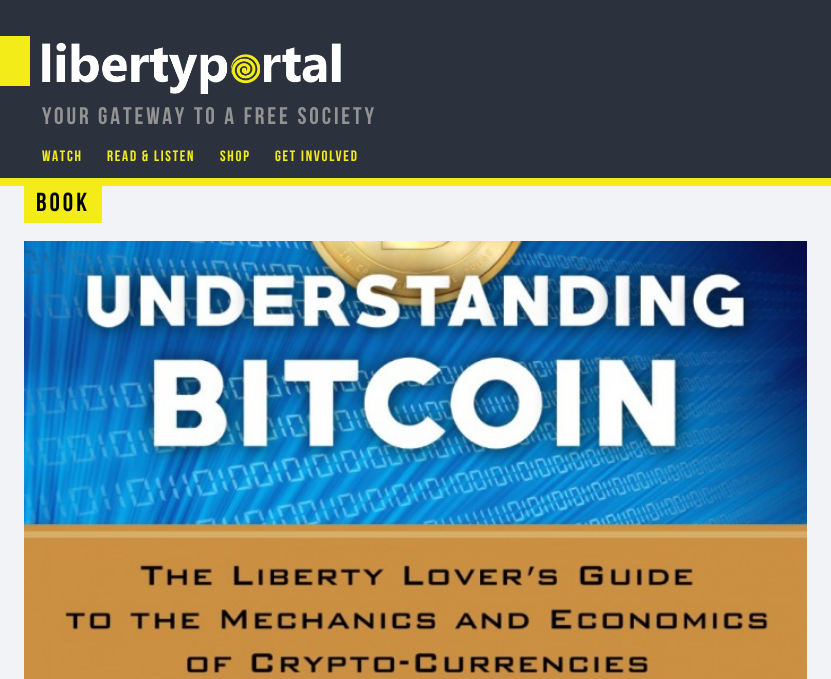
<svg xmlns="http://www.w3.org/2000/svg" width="831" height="679">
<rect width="100%" height="100%" fill="#2b323d"/>
<rect y="36" width="30" height="50" fill="#f3ec19"/>
<image x="42" y="42" width="299" height="52" href="media/1.png"/>
<text x="42" y="124" style="font-family:Bebas Neue;font-size:24px;font-weight:bold;letter-spacing:2.9px;fill:#939393">YOUR GATEWAY TO A FREE SOCIETY</text>
<text x="42" y="161" style="font-family:Bebas Neue;font-size:15px;font-weight:bold;letter-spacing:1.75px;fill:#f3ec19">WATCH</text>
<text x="107" y="161" style="font-family:Bebas Neue;font-size:15px;font-weight:bold;letter-spacing:1.75px;fill:#f3ec19">READ &amp; LISTEN</text>
<text x="220" y="161" style="font-family:Bebas Neue;font-size:15px;font-weight:bold;letter-spacing:1.75px;fill:#f3ec19">SHOP</text>
<text x="275" y="161" style="font-family:Bebas Neue;font-size:15px;font-weight:bold;letter-spacing:1.75px;fill:#f3ec19">GET INVOLVED</text>
<rect y="186" width="831" height="493" fill="#f1f3f7"/>
<rect y="178" width="831" height="8" fill="#f3ec19"/>
<rect x="24" y="186" width="78" height="37" fill="#f3ec19"/>
<text x="36" y="211" style="font-family:Bebas Neue;font-size:26px;font-weight:bold;letter-spacing:3px;fill:#000">Book</text>
<image x="24" y="241" width="783" height="438" href="media/2.png"/>
</svg>
